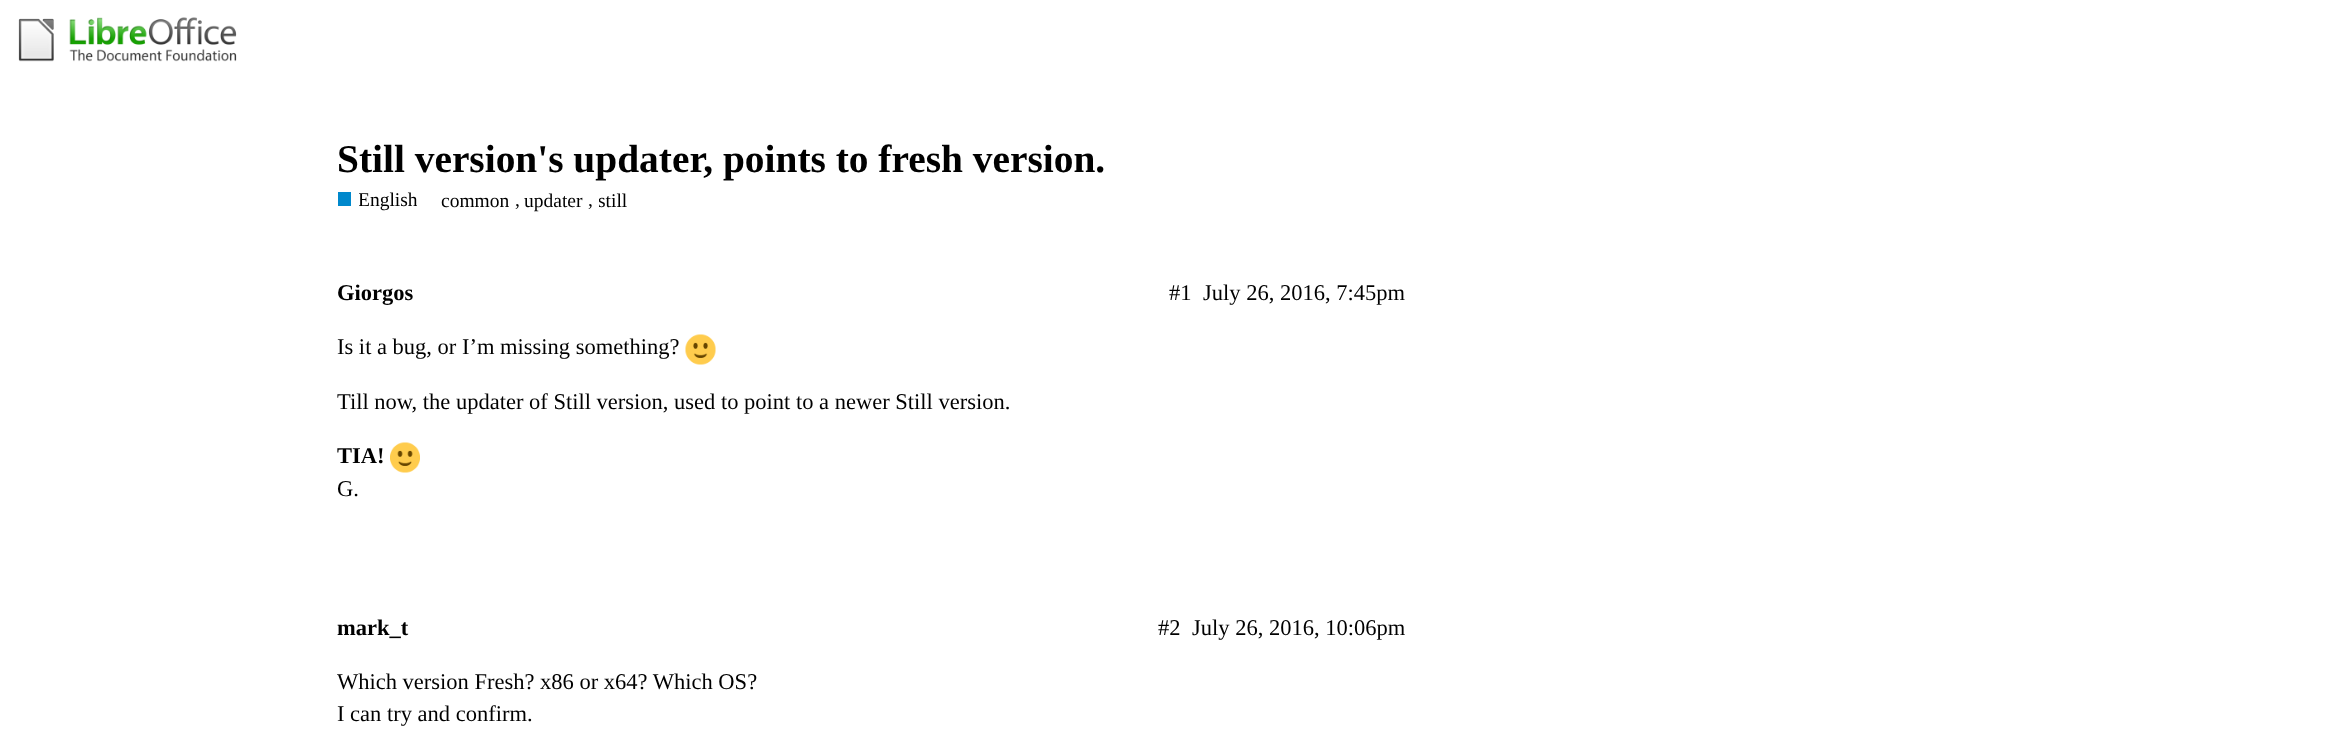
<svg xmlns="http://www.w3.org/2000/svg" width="2338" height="745">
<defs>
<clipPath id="clip1"><rect x="359" y="186" width="58" height="27"/></clipPath>
<clipPath id="clip2"><rect x="599" y="188" width="28" height="27"/></clipPath>
</defs>
<rect width="100%" height="100%" fill="#fff"/>
<image x="18" y="17" width="219" height="45" href="media/1.png"/>
<text x="337" y="172" style="font-family:Liberation Serif;font-size:39.4px;font-weight:bold;fill:#000">Still version's updater, points to fresh version.</text>
<rect x="338" y="192" width="13" height="14" fill="#08c"/>
<g clip-path="url(#clip1)">
<text x="358" y="206" style="font-family:Liberation Serif;font-size:19.5px;fill:#000">English</text>
</g>
<text x="441" y="207" style="font-family:Liberation Serif;font-size:19.5px;fill:#000">common</text>
<text x="515" y="206" style="font-family:Liberation Serif;font-size:19.5px;fill:#000">,</text>
<text x="524" y="207" style="font-family:Liberation Serif;font-size:19.5px;fill:#000">updater</text>
<text x="588" y="206" style="font-family:Liberation Serif;font-size:19.5px;fill:#000">,</text>
<g clip-path="url(#clip2)">
<text x="598" y="207" style="font-family:Liberation Serif;font-size:19.5px;fill:#000">still</text>
</g>
<text x="337" y="300" style="font-family:Liberation Serif;font-size:22.5px;font-weight:bold;fill:#000">Giorgos</text>
<text x="1169" y="300" style="font-family:Liberation Serif;font-size:22.5px;fill:#000">#1</text>
<text x="1203" y="300" style="font-family:Liberation Serif;font-size:22.5px;fill:#000">July 26, 2016, 7:45pm</text>
<text x="337" y="354" style="font-family:Liberation Serif;font-size:22.5px;fill:#000">Is it a bug, or I’m missing something?</text>
<image x="685" y="334" width="31" height="31" href="media/2.png"/>
<text x="337" y="409" style="font-family:Liberation Serif;font-size:22.5px;fill:#000">Till now, the updater of Still version, used to point to a newer Still version.</text>
<text x="337" y="463" style="font-family:Liberation Serif;font-size:22.5px;font-weight:bold;fill:#000">TIA!</text>
<image x="390" y="442" width="30" height="31" href="media/3.png"/>
<text x="337" y="496" style="font-family:Liberation Serif;font-size:22.5px;fill:#000">G.</text>
<text x="337" y="635" style="font-family:Liberation Serif;font-size:22.5px;font-weight:bold;fill:#000">mark_t</text>
<text x="1158" y="635" style="font-family:Liberation Serif;font-size:22.5px;fill:#000">#2</text>
<text x="1192" y="635" style="font-family:Liberation Serif;font-size:22.5px;fill:#000">July 26, 2016, 10:06pm</text>
<text x="337" y="689" style="font-family:Liberation Serif;font-size:22.5px;fill:#000">Which version Fresh? x86 or x64? Which OS?</text>
<text x="337" y="721" style="font-family:Liberation Serif;font-size:22.5px;fill:#000">I can try and confirm.</text>
</svg>
